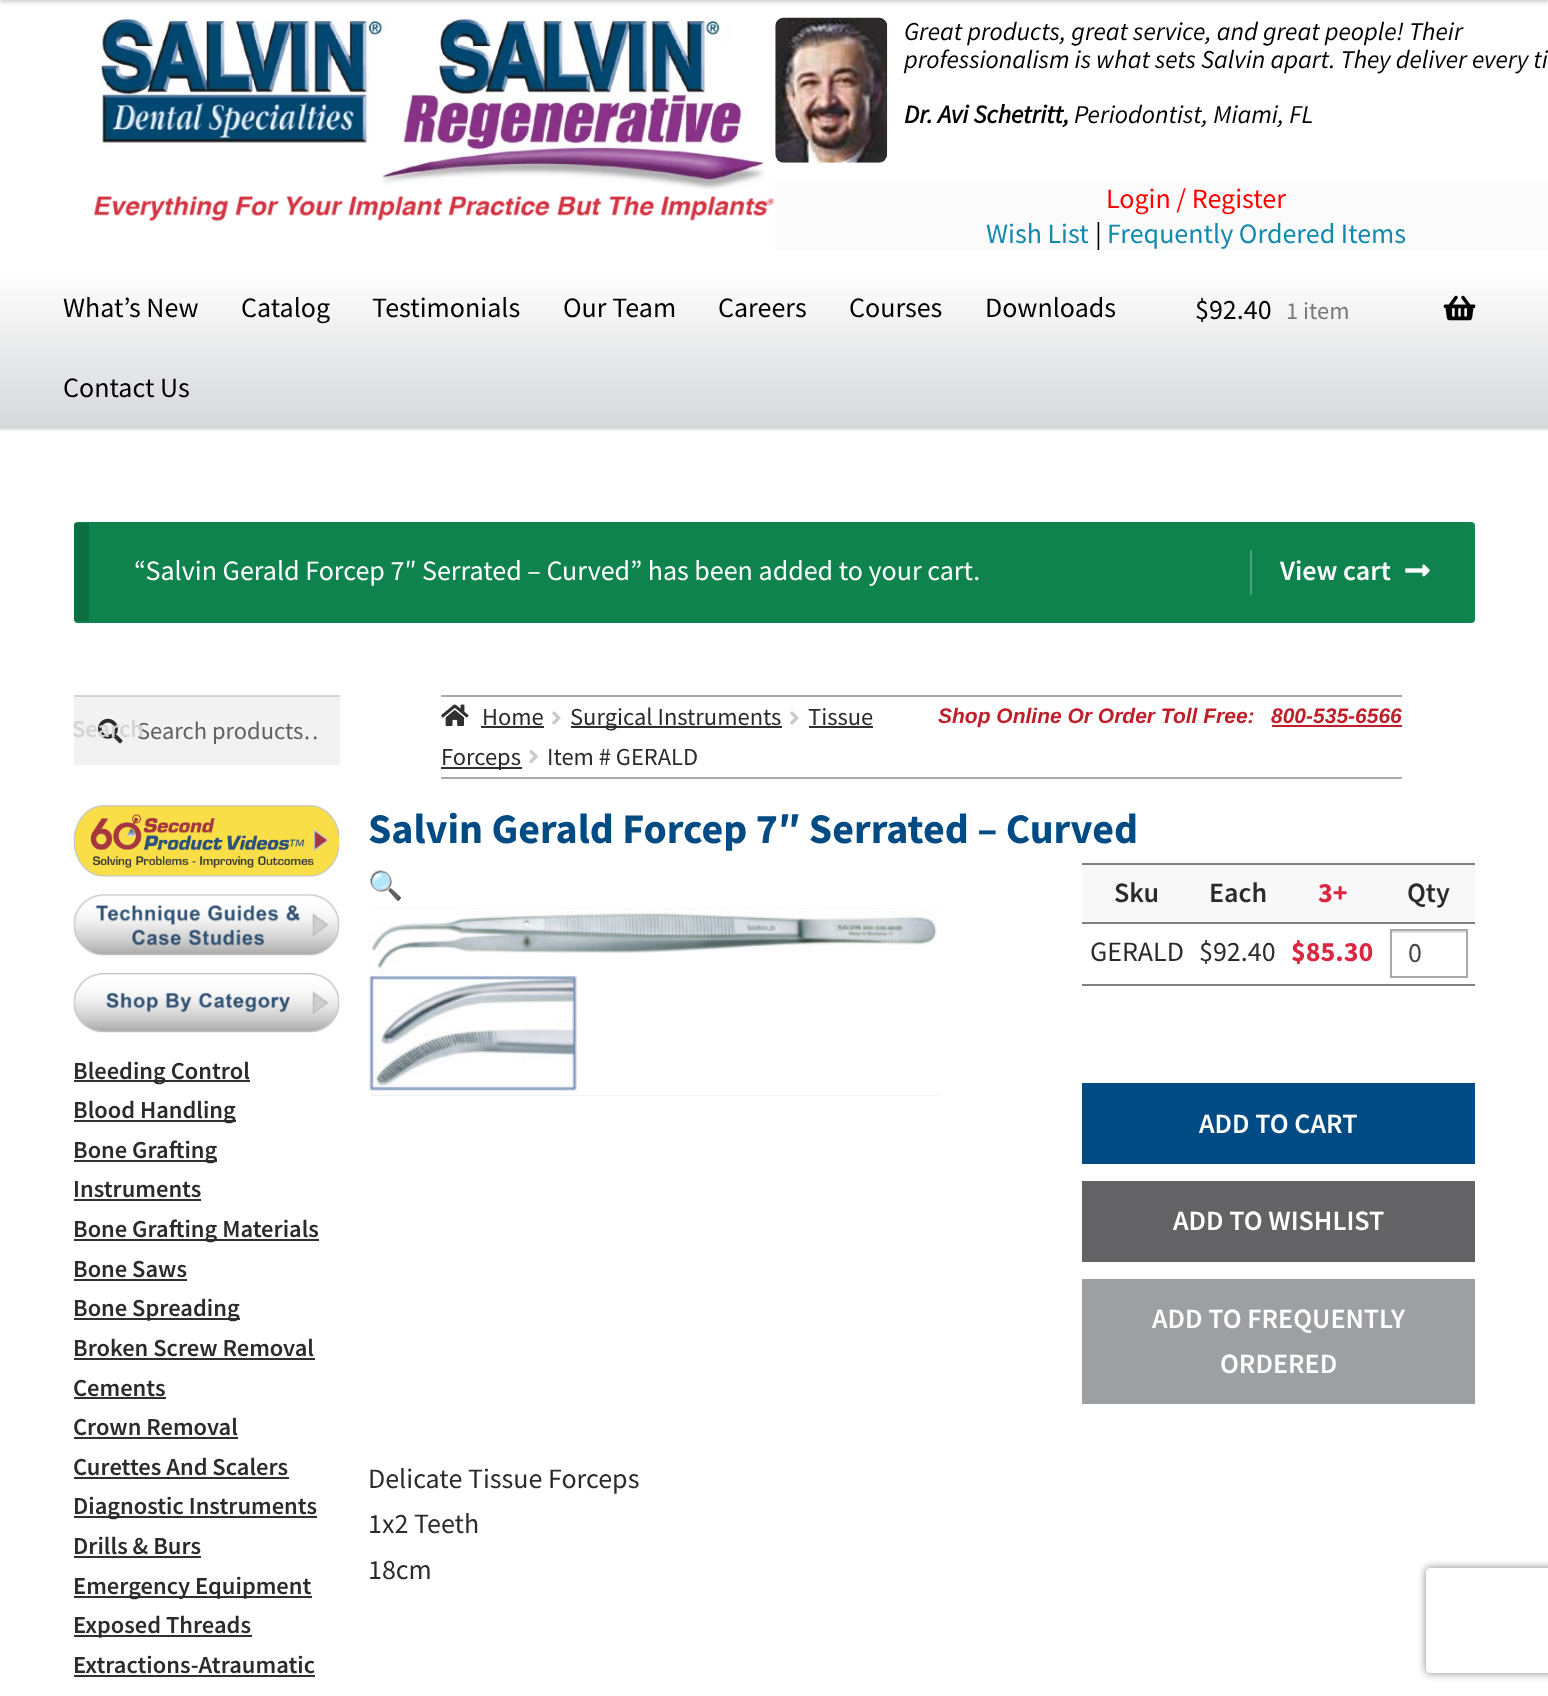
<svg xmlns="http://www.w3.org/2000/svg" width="1548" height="1696">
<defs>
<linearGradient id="g1" gradientUnits="userSpaceOnUse" x1="774" y1="268" x2="774" y2="429"><stop offset="0" stop-color="#fff"/><stop offset="1" stop-color="#d6d7d9"/></linearGradient>
<clipPath id="clip1"><rect x="138" y="714" width="179" height="32"/></clipPath>
<clipPath id="clip2"><path d="M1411 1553h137v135h-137zm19 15h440c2 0 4 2 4 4v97c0 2-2 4-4 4h-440c-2 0-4-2-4-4v-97c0-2 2-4 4-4z" clip-rule="evenodd"/></clipPath>
</defs>
<rect width="100%" height="100%" fill="#fff"/>
<rect y="-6" width="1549" height="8" fill="#00000033" filter="blur(2px)"/>
<rect y="429" width="1548" height="2" fill="#f0f0f0"/>
<image x="98" y="18" width="667" height="172" href="media/1.png"/>
<image x="93" y="196" width="682" height="26" href="media/2.png"/>
<image x="775" y="17" width="113" height="146" href="media/3.png"/>
<text x="904" y="40" style="font-family:Source Sans Pro;font-size:25.7px;font-style:italic;fill:#000">Great products, great service, and great people! Their</text>
<text x="904" y="68" style="font-family:Source Sans Pro;font-size:25.7px;font-style:italic;fill:#000">professionalism is what sets Salvin apart. They deliver every ti</text>
<text x="904" y="123" style="font-family:Source Sans Pro;font-size:25.7px;font-weight:bold;font-style:italic;fill:#000">Dr. Avi Schetritt,</text>
<text x="1074" y="123" style="font-family:Source Sans Pro;font-size:25.7px;font-style:italic;fill:#000">Periodontist, Miami, FL</text>
<rect x="775" y="180" width="773" height="70" fill="#fbfbfb"/>
<text x="1106" y="208" style="font-family:Source Sans Pro;font-size:28px;fill:#f00">Login / Register</text>
<text x="986" y="243" style="font-family:Source Sans Pro;font-size:28px;fill:#1289ad">Wish List</text>
<text x="1095" y="243" style="font-family:Source Sans Pro;font-size:28px;fill:#000">|</text>
<text x="1107" y="243" style="font-family:Source Sans Pro;font-size:28px;fill:#1289ad">Frequently Ordered Items</text>
<rect y="278" width="1548" height="151" fill="url(#g1)"/>
<text x="63" y="317" style="font-family:Source Sans Pro;font-size:28px;fill:#000">What’s New</text>
<text x="241" y="317" style="font-family:Source Sans Pro;font-size:28px;fill:#000">Catalog</text>
<text x="372" y="317" style="font-family:Source Sans Pro;font-size:28px;fill:#000">Testimonials</text>
<text x="563" y="317" style="font-family:Source Sans Pro;font-size:28px;fill:#000">Our Team</text>
<text x="718" y="317" style="font-family:Source Sans Pro;font-size:28px;fill:#000">Careers</text>
<text x="849" y="317" style="font-family:Source Sans Pro;font-size:28px;fill:#000">Courses</text>
<text x="985" y="317" style="font-family:Source Sans Pro;font-size:28px;fill:#000">Downloads</text>
<text x="63" y="397" style="font-family:Source Sans Pro;font-size:28px;fill:#000">Contact Us</text>
<text x="1195" y="319" style="font-family:Source Sans Pro;font-size:28px;fill:#000">$92.40</text>
<text x="1286" y="319" style="font-family:Source Sans Pro;font-size:24.5px;fill:#7a7a7a">1 item</text>
<image x="1443" y="295" width="33" height="26" href="media/4.png"/>
<rect x="74" y="522" width="1401" height="101" rx="4" fill="#0f834d"/>
<rect x="74" y="523" width="15" height="98" fill="#00000026"/>
<text x="134" y="580" style="font-family:Source Sans Pro;font-size:28px;fill:#fff">“Salvin Gerald Forcep 7″ Serrated – Curved” has been added to your cart.</text>
<rect x="1250" y="550" width="2" height="45" fill="#4ba27a"/>
<text x="1280" y="580" style="font-family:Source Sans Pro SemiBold;font-size:28px;font-weight:600;fill:#fff">View cart</text>
<image x="1405" y="564" width="25" height="13" href="media/5.png"/>
<rect x="74" y="697" width="266" height="68" fill="#f2f2f2"/>
<image x="98" y="718" width="25" height="26" href="media/6.png"/>
<g clip-path="url(#clip1)">
<text x="137" y="739" style="font-family:Source Sans Pro;font-size:24.5px;fill:#616161">Search products…</text>
</g>
<text x="72" y="737" style="font-family:Source Sans Pro SemiBold;font-size:24.5px;font-weight:600;fill:#d5d5d5">Search</text>
<rect x="74" y="695" width="266" height="2" fill="#d4d4d4"/>
<image x="73" y="805" width="267" height="72" href="media/7.png"/>
<image x="73" y="894" width="267" height="62" href="media/8.png"/>
<image x="73" y="973" width="267" height="60" href="media/9.png"/>
<rect x="74" y="1080" width="176" height="2" fill="#303030"/>
<text x="73" y="1079" style="font-family:Source Sans Pro SemiBold;font-size:24.5px;font-weight:600;fill:#2b2b2b">Bleeding Control</text>
<rect x="74" y="1120" width="162" height="2" fill="#303030"/>
<text x="73" y="1118" style="font-family:Source Sans Pro SemiBold;font-size:24.5px;font-weight:600;fill:#2b2b2b">Blood Handling</text>
<rect x="74" y="1160" width="143" height="2" fill="#303030"/>
<text x="73" y="1158" style="font-family:Source Sans Pro SemiBold;font-size:24.5px;font-weight:600;fill:#2b2b2b">Bone Grafting</text>
<text x="73" y="1197" style="font-family:Source Sans Pro SemiBold;font-size:24.5px;font-weight:600;fill:#2b2b2b">Instruments</text>
<rect x="74" y="1199" width="127" height="2" fill="#303030"/>
<rect x="74" y="1239" width="245" height="2" fill="#303030"/>
<text x="73" y="1237" style="font-family:Source Sans Pro SemiBold;font-size:24.5px;font-weight:600;fill:#2b2b2b">Bone Grafting Materials</text>
<text x="73" y="1277" style="font-family:Source Sans Pro SemiBold;font-size:24.5px;font-weight:600;fill:#2b2b2b">Bone Saws</text>
<rect x="74" y="1279" width="113" height="2" fill="#303030"/>
<rect x="74" y="1318" width="166" height="2" fill="#303030"/>
<text x="73" y="1316" style="font-family:Source Sans Pro SemiBold;font-size:24.5px;font-weight:600;fill:#2b2b2b">Bone Spreading</text>
<text x="73" y="1356" style="font-family:Source Sans Pro SemiBold;font-size:24.5px;font-weight:600;fill:#2b2b2b">Broken Screw Removal</text>
<rect x="74" y="1358" width="241" height="2" fill="#303030"/>
<text x="73" y="1396" style="font-family:Source Sans Pro SemiBold;font-size:24.5px;font-weight:600;fill:#2b2b2b">Cements</text>
<rect x="74" y="1397" width="92" height="2" fill="#303030"/>
<text x="73" y="1435" style="font-family:Source Sans Pro SemiBold;font-size:24.5px;font-weight:600;fill:#2b2b2b">Crown Removal</text>
<rect x="74" y="1437" width="164" height="2" fill="#303030"/>
<text x="73" y="1475" style="font-family:Source Sans Pro SemiBold;font-size:24.5px;font-weight:600;fill:#2b2b2b">Curettes And Scalers</text>
<rect x="74" y="1477" width="215" height="2" fill="#303030"/>
<rect x="74" y="1516" width="243" height="2" fill="#303030"/>
<text x="73" y="1514" style="font-family:Source Sans Pro SemiBold;font-size:24.5px;font-weight:600;fill:#2b2b2b">Diagnostic Instruments</text>
<text x="73" y="1554" style="font-family:Source Sans Pro SemiBold;font-size:24.5px;font-weight:600;fill:#2b2b2b">Drills &amp; Burs</text>
<rect x="74" y="1556" width="127" height="2" fill="#303030"/>
<rect x="74" y="1596" width="238" height="2" fill="#303030"/>
<text x="73" y="1594" style="font-family:Source Sans Pro SemiBold;font-size:24.5px;font-weight:600;fill:#2b2b2b">Emergency Equipment</text>
<rect x="74" y="1635" width="178" height="2" fill="#303030"/>
<text x="73" y="1633" style="font-family:Source Sans Pro SemiBold;font-size:24.5px;font-weight:600;fill:#2b2b2b">Exposed Threads</text>
<text x="73" y="1673" style="font-family:Source Sans Pro SemiBold;font-size:24.5px;font-weight:600;fill:#2b2b2b">Extractions-Atraumatic</text>
<rect x="74" y="1675" width="241" height="2" fill="#303030"/>
<rect x="441" y="695" width="961" height="2" fill="#aaa"/>
<rect x="441" y="777" width="961" height="2" fill="#aaa"/>
<image x="441" y="704" width="28" height="22" href="media/10.png"/>
<text x="482" y="725" style="font-family:Source Sans Pro;font-size:24.5px;fill:#2b2b2b">Home</text>
<rect x="481" y="726" width="63" height="2" fill="#303030"/>
<image x="552" y="711" width="9" height="14" href="media/11.png"/>
<rect x="571" y="726" width="211" height="2" fill="#303030"/>
<text x="570" y="725" style="font-family:Source Sans Pro;font-size:24.5px;fill:#2b2b2b">Surgical Instruments</text>
<image x="790" y="711" width="9" height="14" href="media/11.png"/>
<text x="808" y="725" style="font-family:Source Sans Pro;font-size:24.5px;fill:#2b2b2b">Tissue</text>
<rect x="809" y="726" width="64" height="2" fill="#303030"/>
<text x="938" y="723" style="font-family:Liberation Sans;font-size:21px;font-weight:bold;font-style:italic;fill:#c01f29">Shop Online Or Order Toll Free:</text>
<text x="1271" y="723" style="font-family:Liberation Sans;font-size:21px;font-weight:bold;font-style:italic;fill:#c01f29">800-535-6566</text>
<rect x="1272" y="725" width="130" height="2" fill="#c01f29"/>
<rect x="441" y="767" width="81" height="2" fill="#303030"/>
<text x="441" y="765" style="font-family:Source Sans Pro;font-size:24.5px;fill:#2b2b2b">Forceps</text>
<image x="529" y="749" width="9" height="15" href="media/12.png"/>
<text x="547" y="765" style="font-family:Source Sans Pro;font-size:24.5px;fill:#2b2b2b">Item # GERALD</text>
<text x="368" y="843" style="font-family:Source Sans Pro;font-size:42px;font-weight:bold;fill:#004b84">Salvin Gerald Forcep 7″ Serrated – Curved</text>
<text x="368" y="895" style="font-family:Noto Color Emoji;font-size:28px;fill:#1289ad">🔍</text>
<rect x="368" y="908" width="575" height="188" rx="5" fill="#eceff0"/>
<image x="367" y="908" width="576" height="188" href="media/13.png"/>
<rect x="1082" y="865" width="393" height="57" fill="#f8f8f8"/>
<rect x="1082" y="863" width="393" height="2" fill="#808080"/>
<text x="1114" y="902" style="font-family:Source Sans Pro SemiBold;font-size:28px;font-weight:600;fill:#2b2b2b">Sku</text>
<text x="1209" y="902" style="font-family:Source Sans Pro SemiBold;font-size:28px;font-weight:600;fill:#2b2b2b">Each</text>
<text x="1318" y="902" style="font-family:Source Sans Pro;font-size:28px;font-weight:bold;fill:#db2742">3+</text>
<text x="1407" y="902" style="font-family:Source Sans Pro SemiBold;font-size:28px;font-weight:600;fill:#2b2b2b">Qty</text>
<rect x="1082" y="922" width="393" height="2" fill="#808080"/>
<text x="1090" y="961" style="font-family:Source Sans Pro;font-size:28px;fill:#2b2b2b">GERALD</text>
<text x="1199" y="961" style="font-family:Source Sans Pro;font-size:28px;fill:#2b2b2b">$92.40</text>
<text x="1291" y="961" style="font-family:Source Sans Pro;font-size:28px;font-weight:bold;fill:#db2742">$85.30</text>
<rect x="1391" y="931" width="76" height="2" fill="#dfdfdf"/>
<rect x="1391" y="930" width="76" height="47" fill="none" stroke="#a9a9a9" stroke-width="2"/>
<text x="1408" y="962" style="font-family:Source Sans Pro;font-size:28px;fill:#43454b">0</text>
<rect x="1082" y="984" width="393" height="2" fill="#808080"/>
<rect x="1082" y="1083" width="393" height="81" fill="#004b84"/>
<text x="1199" y="1133" style="font-family:Source Sans Pro SemiBold;font-size:28px;font-weight:600;fill:#fff">ADD TO CART</text>
<rect x="1082" y="1181" width="393" height="81" fill="#636366"/>
<text x="1173" y="1230" style="font-family:Source Sans Pro SemiBold;font-size:28px;font-weight:600;fill:#fff">ADD TO WISHLIST</text>
<rect x="1082" y="1279" width="393" height="125" fill="#9d9fa2"/>
<text x="1152" y="1328" style="font-family:Source Sans Pro SemiBold;font-size:28px;font-weight:600;fill:#fff">ADD TO FREQUENTLY</text>
<text x="1220" y="1373" style="font-family:Source Sans Pro SemiBold;font-size:28px;font-weight:600;fill:#fff">ORDERED</text>
<text x="368" y="1488" style="font-family:Source Sans Pro;font-size:28px;fill:#2b2b2b">Delicate Tissue Forceps</text>
<text x="368" y="1533" style="font-family:Source Sans Pro;font-size:28px;fill:#2b2b2b">1x2 Teeth</text>
<text x="368" y="1579" style="font-family:Source Sans Pro;font-size:28px;fill:#2b2b2b">18cm</text>
<g clip-path="url(#clip2)">
<rect x="1426" y="1568" width="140" height="105" rx="4" fill="#808080" filter="blur(4.5px)"/>
</g>
</svg>
